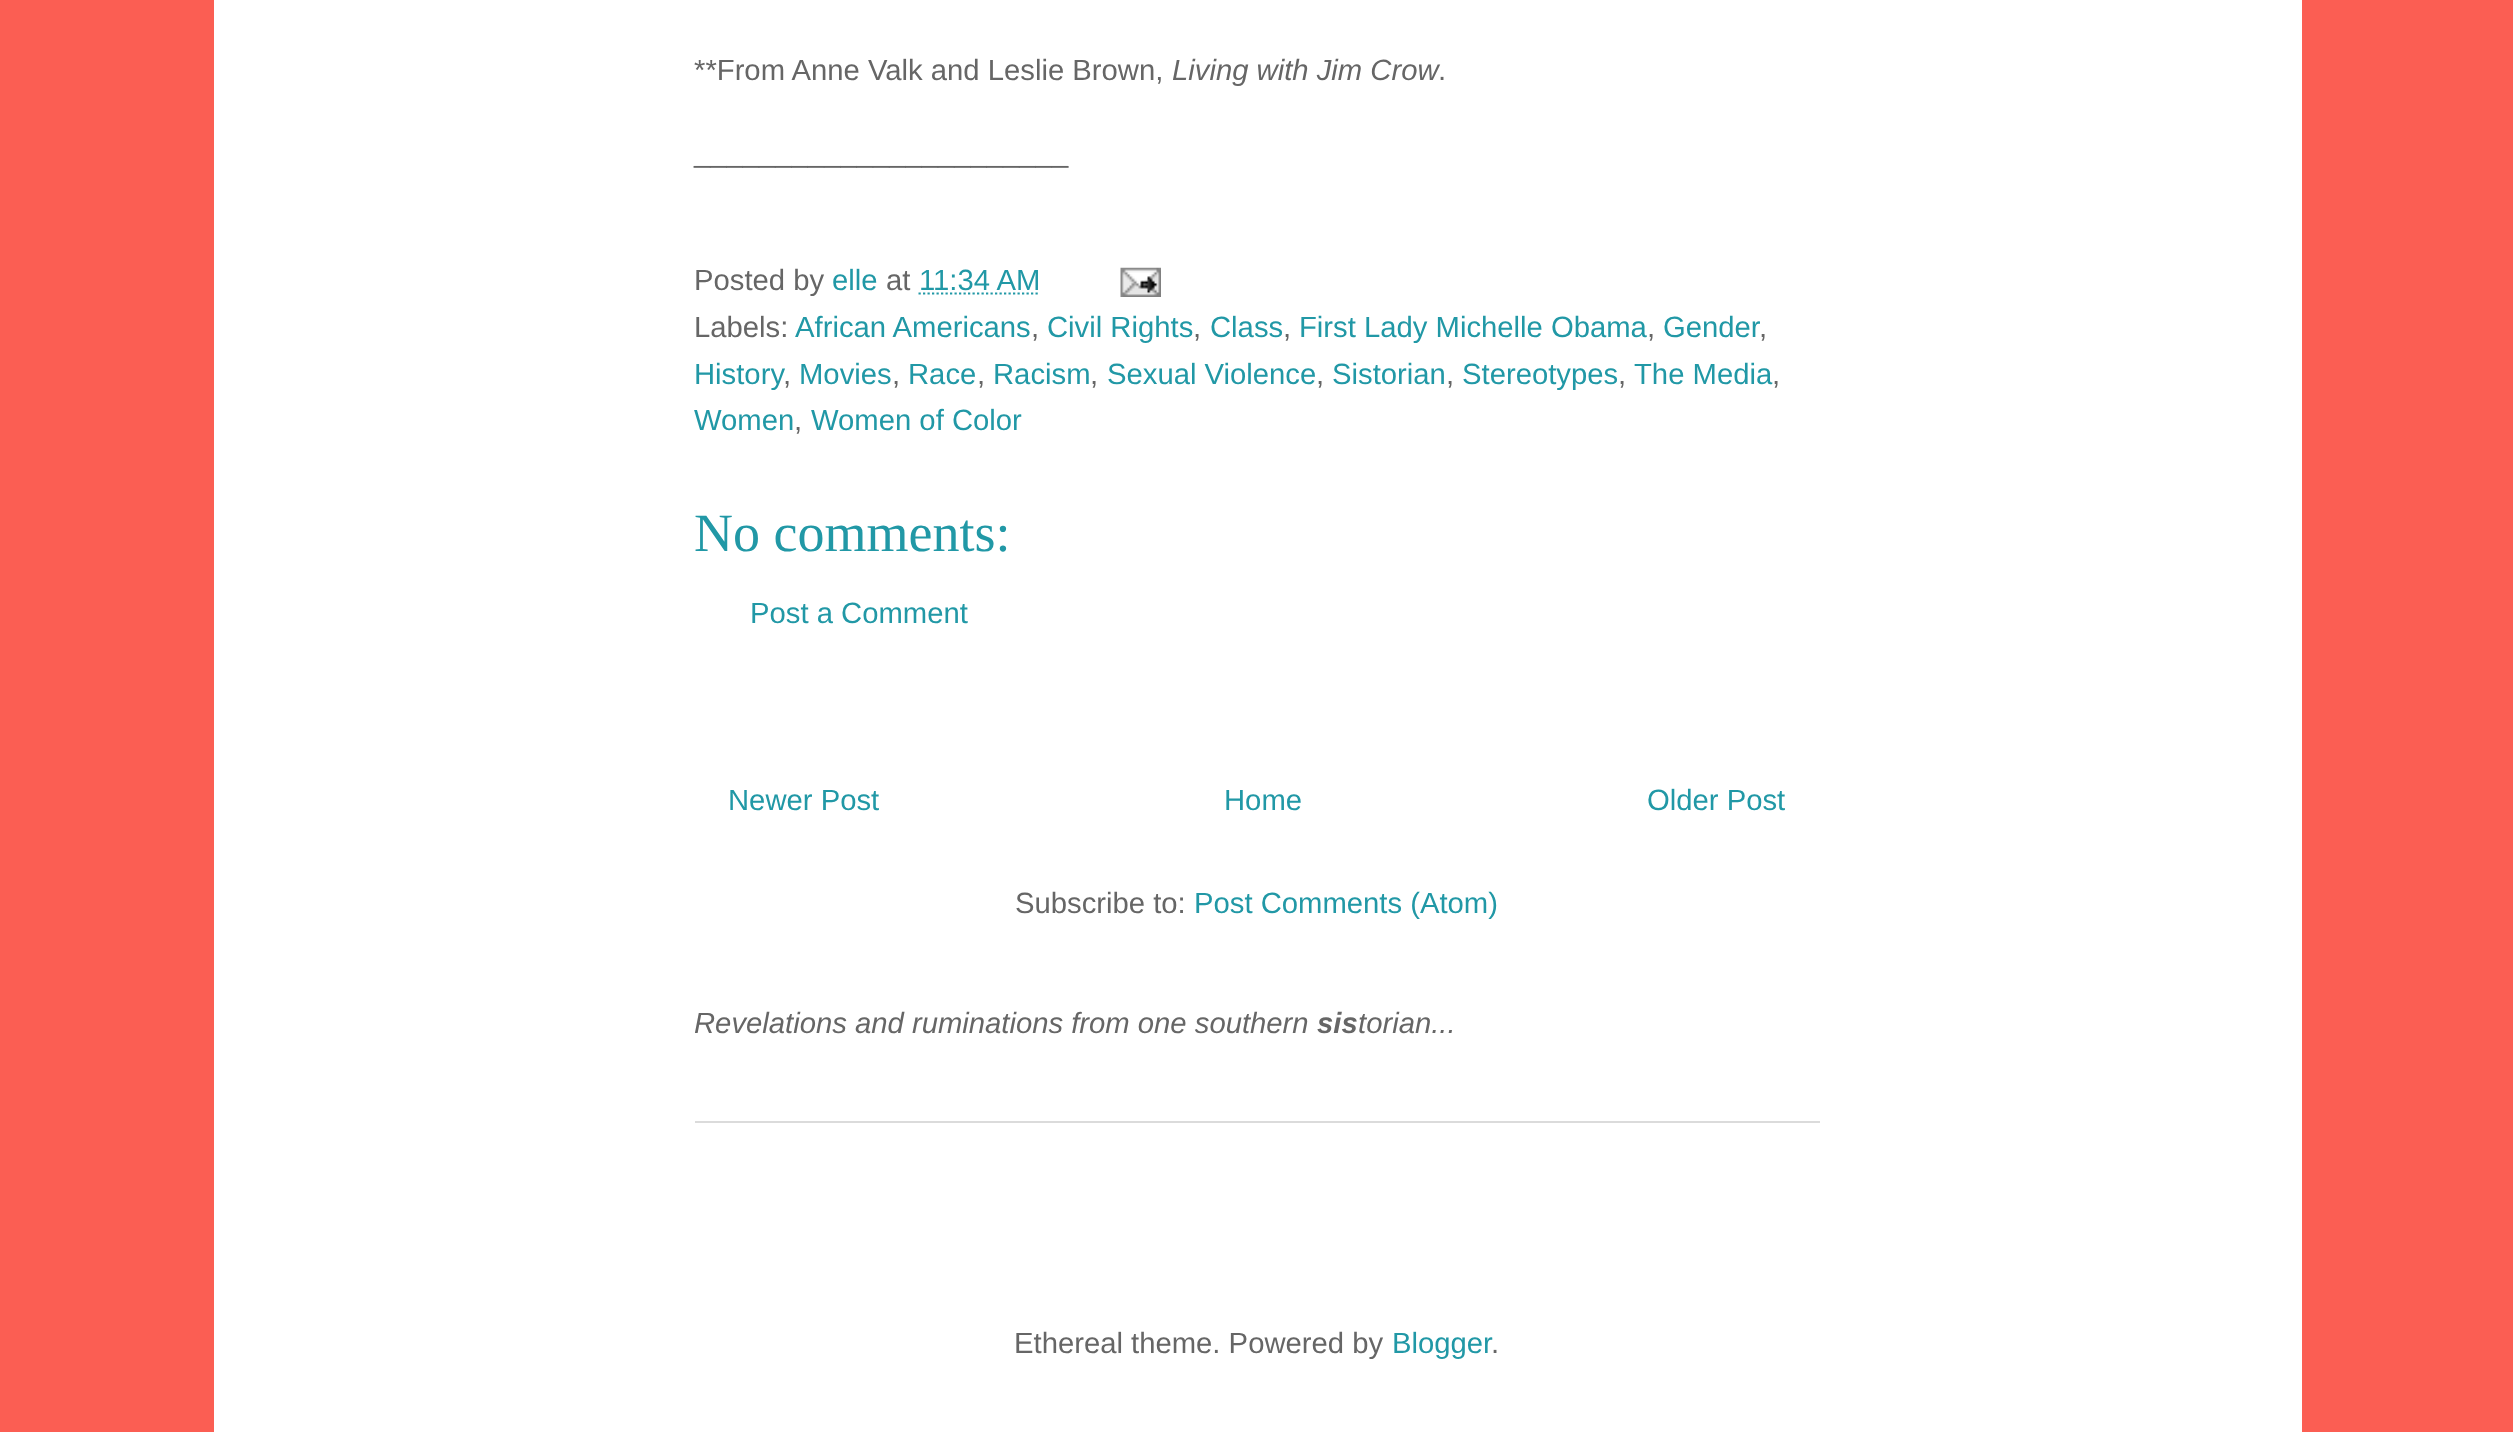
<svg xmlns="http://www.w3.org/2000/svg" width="2513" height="1432">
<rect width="100%" height="100%" fill="#fb5e53"/>
<rect x="214" width="2088" height="1432" fill="#fff"/>
<text x="694" y="80" style="font-family:Liberation Sans;font-size:29.25px;fill:#666">**From Anne Valk and Leslie Brown,</text>
<text x="1172" y="80" style="font-family:Liberation Sans;font-size:29.25px;font-style:italic;fill:#666">Living with Jim Crow</text>
<text x="1438" y="80" style="font-family:Liberation Sans;font-size:29.25px;fill:#666">.</text>
<text x="694" y="162" style="font-family:Liberation Sans;font-size:29.25px;fill:#666">_______________________</text>
<text x="694" y="290" style="font-family:Liberation Sans;font-size:29.25px;fill:#666">Posted by</text>
<text x="832" y="290" style="font-family:Liberation Sans;font-size:29.25px;fill:#2198a6">elle</text>
<text x="886" y="290" style="font-family:Liberation Sans;font-size:29.25px;fill:#666">at</text>
<text x="919" y="290" style="font-family:Liberation Sans;font-size:29.25px;fill:#2198a6">11:34 AM</text>
<path d="M918.5 293.5h121.5" fill="none" stroke="#2198a6" stroke-width="2.2" stroke-dasharray="2.25 2.25"/>
<image x="1120" y="267" width="41" height="30" href="media/1.png"/>
<text x="694" y="337" style="font-family:Liberation Sans;font-size:29.25px;fill:#666">Labels:</text>
<text x="795" y="337" style="font-family:Liberation Sans;font-size:29.25px;fill:#2198a6">African Americans</text>
<text x="1031" y="337" style="font-family:Liberation Sans;font-size:29.25px;fill:#666">,</text>
<text x="1047" y="337" style="font-family:Liberation Sans;font-size:29.25px;fill:#2198a6">Civil Rights</text>
<text x="1193" y="337" style="font-family:Liberation Sans;font-size:29.25px;fill:#666">,</text>
<text x="1210" y="337" style="font-family:Liberation Sans;font-size:29.25px;fill:#2198a6">Class</text>
<text x="1283" y="337" style="font-family:Liberation Sans;font-size:29.25px;fill:#666">,</text>
<text x="1299" y="337" style="font-family:Liberation Sans;font-size:29.25px;fill:#2198a6">First Lady Michelle Obama</text>
<text x="1647" y="337" style="font-family:Liberation Sans;font-size:29.25px;fill:#666">,</text>
<text x="1663" y="337" style="font-family:Liberation Sans;font-size:29.25px;fill:#2198a6">Gender</text>
<text x="1759" y="337" style="font-family:Liberation Sans;font-size:29.25px;fill:#666">,</text>
<text x="694" y="384" style="font-family:Liberation Sans;font-size:29.25px;fill:#2198a6">History</text>
<text x="783" y="384" style="font-family:Liberation Sans;font-size:29.25px;fill:#666">,</text>
<text x="799" y="384" style="font-family:Liberation Sans;font-size:29.25px;fill:#2198a6">Movies</text>
<text x="892" y="384" style="font-family:Liberation Sans;font-size:29.25px;fill:#666">,</text>
<text x="908" y="384" style="font-family:Liberation Sans;font-size:29.25px;fill:#2198a6">Race</text>
<text x="977" y="384" style="font-family:Liberation Sans;font-size:29.25px;fill:#666">,</text>
<text x="993" y="384" style="font-family:Liberation Sans;font-size:29.25px;fill:#2198a6">Racism</text>
<text x="1090" y="384" style="font-family:Liberation Sans;font-size:29.25px;fill:#666">,</text>
<text x="1107" y="384" style="font-family:Liberation Sans;font-size:29.25px;fill:#2198a6">Sexual Violence</text>
<text x="1316" y="384" style="font-family:Liberation Sans;font-size:29.25px;fill:#666">,</text>
<text x="1332" y="384" style="font-family:Liberation Sans;font-size:29.25px;fill:#2198a6">Sistorian</text>
<text x="1446" y="384" style="font-family:Liberation Sans;font-size:29.25px;fill:#666">,</text>
<text x="1462" y="384" style="font-family:Liberation Sans;font-size:29.25px;fill:#2198a6">Stereotypes</text>
<text x="1618" y="384" style="font-family:Liberation Sans;font-size:29.25px;fill:#666">,</text>
<text x="1634" y="384" style="font-family:Liberation Sans;font-size:29.25px;fill:#2198a6">The Media</text>
<text x="1772" y="384" style="font-family:Liberation Sans;font-size:29.25px;fill:#666">,</text>
<text x="694" y="430" style="font-family:Liberation Sans;font-size:29.25px;fill:#2198a6">Women</text>
<text x="794" y="430" style="font-family:Liberation Sans;font-size:29.25px;fill:#666">,</text>
<text x="811" y="430" style="font-family:Liberation Sans;font-size:29.25px;fill:#2198a6">Women of Color</text>
<text x="694" y="551" style="font-family:Liberation Serif;font-size:54px;fill:#2198a6">No comments:</text>
<text x="750" y="623" style="font-family:Liberation Sans;font-size:29.25px;fill:#2198a6">Post a Comment</text>
<text x="728" y="810" style="font-family:Liberation Sans;font-size:29.25px;fill:#2198a6">Newer Post</text>
<text x="1224" y="810" style="font-family:Liberation Sans;font-size:29.25px;fill:#2198a6">Home</text>
<text x="1647" y="810" style="font-family:Liberation Sans;font-size:29.25px;fill:#2198a6">Older Post</text>
<text x="1015" y="913" style="font-family:Liberation Sans;font-size:29.25px;fill:#666">Subscribe to:</text>
<text x="1194" y="913" style="font-family:Liberation Sans;font-size:29.25px;fill:#2198a6">Post Comments (Atom)</text>
<rect x="695" y="1121" width="1125" height="2" fill="#dbdbdb"/>
<text x="694" y="1033" style="font-family:Liberation Sans;font-size:29.25px;font-style:italic;fill:#666">Revelations and ruminations from one southern</text>
<text x="1317" y="1033" style="font-family:Liberation Sans;font-size:29.25px;font-weight:bold;font-style:italic;fill:#666">sis</text>
<text x="1358" y="1033" style="font-family:Liberation Sans;font-size:29.25px;font-style:italic;fill:#666">torian...</text>
<text x="1014" y="1353" style="font-family:Liberation Sans;font-size:29.25px;fill:#666">Ethereal theme. Powered by</text>
<text x="1392" y="1353" style="font-family:Liberation Sans;font-size:29.25px;fill:#2198a6">Blogger</text>
<text x="1491" y="1353" style="font-family:Liberation Sans;font-size:29.25px;fill:#666">.</text>
</svg>
